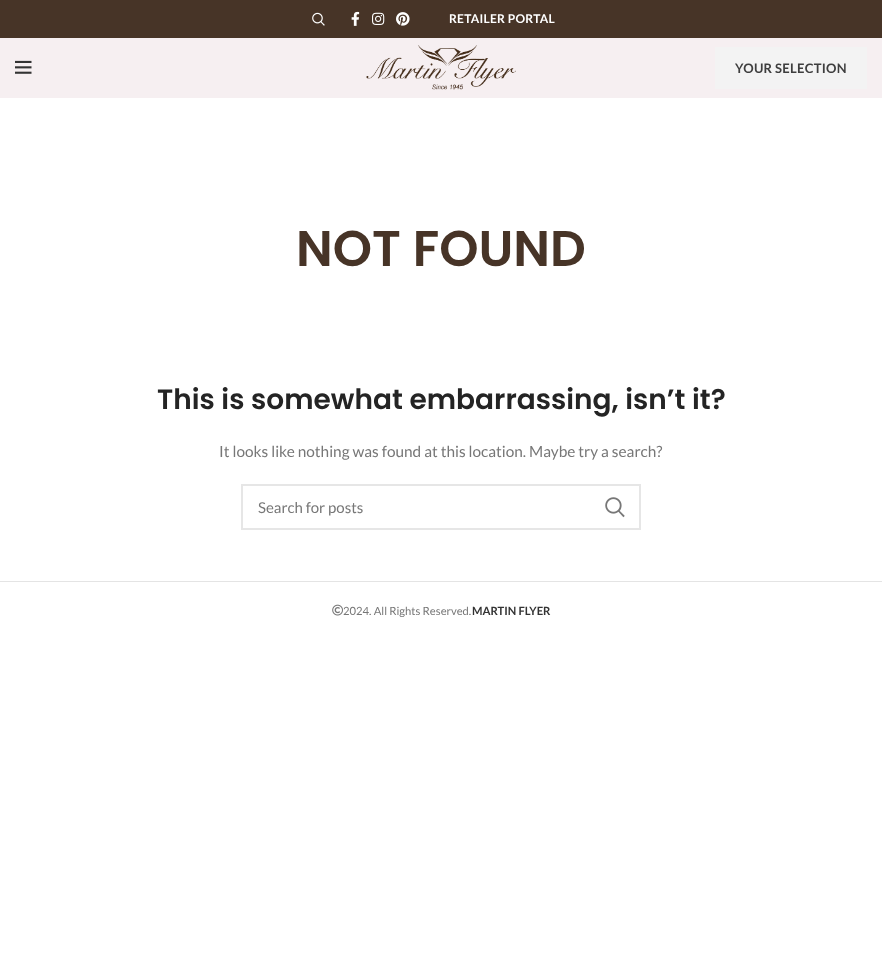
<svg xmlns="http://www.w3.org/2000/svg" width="882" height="965">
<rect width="100%" height="100%" fill="#fff"/>
<rect width="882" height="38" fill="#473427"/>
<image x="312" y="12" width="13" height="14" href="media/1.png"/>
<image x="351" y="11" width="9" height="15" href="media/2.png"/>
<image x="372" y="12" width="13" height="13" href="media/3.png"/>
<image x="396" y="12" width="14" height="14" href="media/4.png"/>
<text x="449" y="23" style="font-family:Lato;font-size:12px;font-weight:bold;letter-spacing:0.25px;fill:#fff">RETAILER PORTAL</text>
<rect y="38" width="882" height="60" fill="#f6eff1"/>
<image x="15" y="60" width="17" height="14" href="media/5.png"/>
<image x="366" y="45" width="150" height="45" href="media/6.png"/>
<rect x="715" y="47" width="152" height="42" fill="#f3f3f3"/>
<text x="735" y="73" style="font-family:Lato;font-size:13px;font-weight:bold;letter-spacing:0.25px;fill:#3e3e3e">YOUR SELECTION</text>
<text x="296" y="266" style="font-family:Poppins;font-size:50px;font-weight:600;fill:#473427">NOT FOUND</text>
<text x="157" y="409" style="font-family:Poppins;font-size:28px;font-weight:600;fill:#242424">This is somewhat embarrassing, isn’t it?</text>
<text x="219" y="457" style="font-family:Lato;font-size:15.4px;fill:#777">It looks like nothing was found at this location. Maybe try a search?</text>
<rect x="242" y="485" width="398" height="44" fill="none" stroke="#e6e6e6" stroke-width="2"/>
<text x="258" y="513" style="font-family:Lato;font-size:15px;fill:#777">Search for posts</text>
<image x="605" y="497" width="20" height="21" href="media/7.png"/>
<rect y="581" width="882" height="1" fill="#e4e4e4"/>
<image x="332" y="604" width="11" height="12" href="media/8.png"/>
<text x="343" y="615" style="font-family:Lato;font-size:11.25px;fill:#777">2024. All Rights Reserved.</text>
<text x="472" y="615" style="font-family:Lato;font-size:11.25px;font-weight:bold;fill:#333">MARTIN FLYER</text>
</svg>
